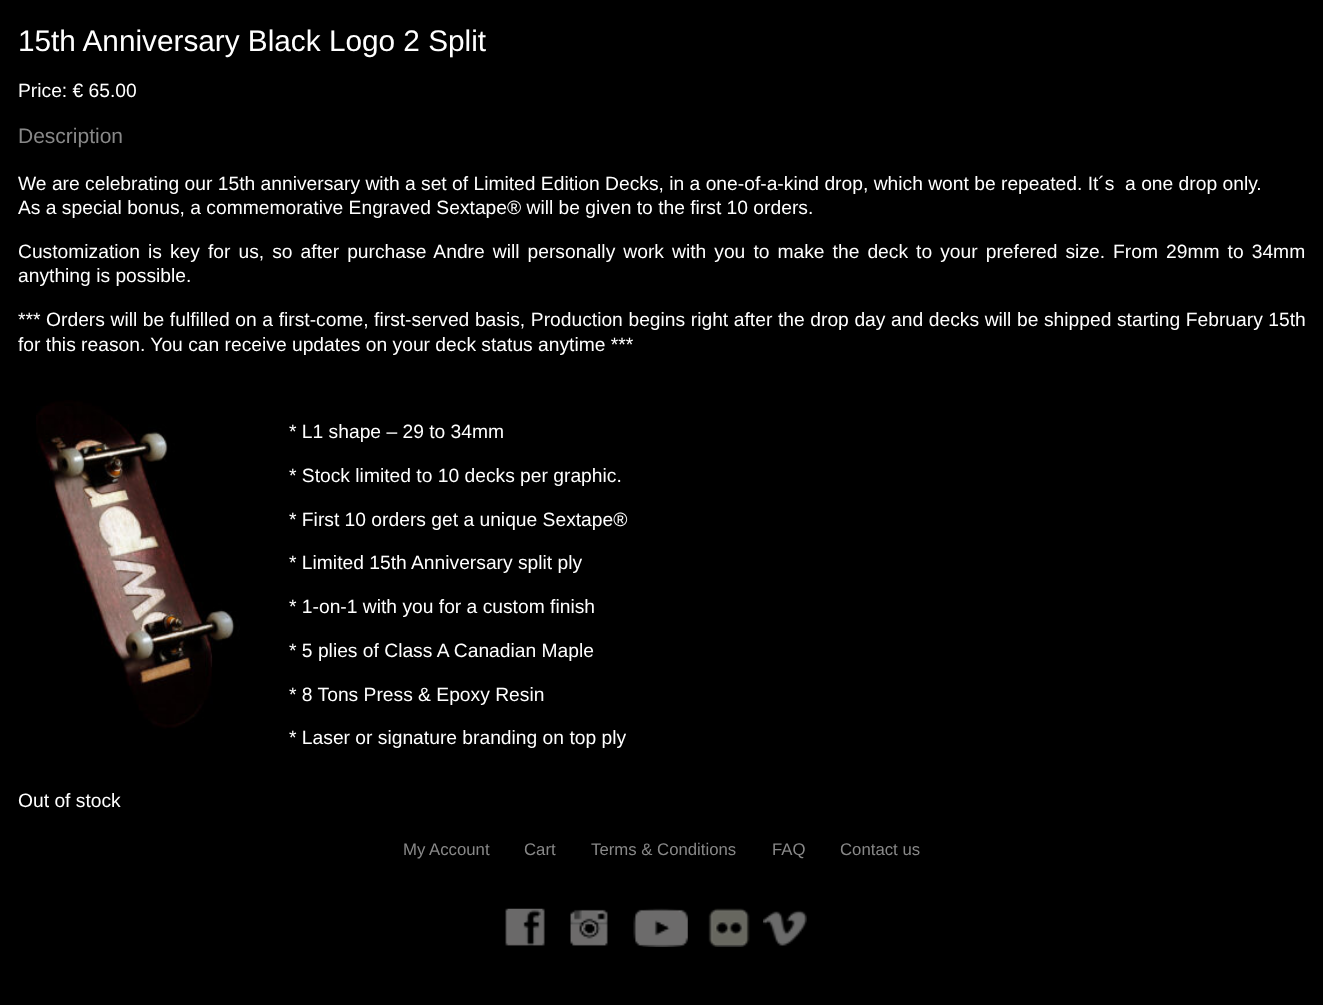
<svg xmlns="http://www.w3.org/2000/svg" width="1323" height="1005">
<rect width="100%" height="100%" fill="#000"/>
<text x="18" y="51" style="font-family:Liberation Sans;font-size:29.75px;fill:#fff">15th Anniversary Black Logo 2 Split</text>
<text x="18" y="97" style="font-family:Liberation Sans;font-size:19.25px;fill:#fff">Price: € 65.00</text>
<text x="18" y="143" style="font-family:Liberation Sans;font-size:21px;fill:#888">Description</text>
<text x="18" y="190" style="font-family:Liberation Sans;font-size:19.25px;fill:#fff" xml:space="preserve">We are celebrating our 15th anniversary with a set of Limited Edition Decks, in a one-of-a-kind drop, which wont be repeated. It´s  a one drop only.</text>
<text x="18" y="214" style="font-family:Liberation Sans;font-size:19.25px;fill:#fff">As a special bonus, a commemorative Engraved Sextape® will be given to the first 10 orders.</text>
<text x="18" y="258" word-spacing="2.7" style="font-family:Liberation Sans;font-size:19.25px;fill:#fff">Customization is key for us, so after purchase Andre will personally work with you to make the deck to your prefered size. From 29mm to 34mm</text>
<text x="18" y="282" style="font-family:Liberation Sans;font-size:19.25px;fill:#fff">anything is possible.</text>
<text x="18" y="326" word-spacing="0.25" style="font-family:Liberation Sans;font-size:19.25px;fill:#fff">*** Orders will be fulfilled on a first-come, first-served basis, Production begins right after the drop day and decks will be shipped starting February 15th</text>
<text x="18" y="351" style="font-family:Liberation Sans;font-size:19.25px;fill:#fff">for this reason. You can receive updates on your deck status anytime ***</text>
<image x="36" y="400" width="204" height="329" href="media/1.png"/>
<text x="289" y="438" style="font-family:Liberation Sans;font-size:19.25px;fill:#fff">* L1 shape – 29 to 34mm</text>
<text x="289" y="482" style="font-family:Liberation Sans;font-size:19.25px;fill:#fff">* Stock limited to 10 decks per graphic.</text>
<text x="289" y="526" style="font-family:Liberation Sans;font-size:19.25px;fill:#fff">* First 10 orders get a unique Sextape®</text>
<text x="289" y="569" style="font-family:Liberation Sans;font-size:19.25px;fill:#fff">* Limited 15th Anniversary split ply</text>
<text x="289" y="613" style="font-family:Liberation Sans;font-size:19.25px;fill:#fff">* 1-on-1 with you for a custom finish</text>
<text x="289" y="657" style="font-family:Liberation Sans;font-size:19.25px;fill:#fff">* 5 plies of Class A Canadian Maple</text>
<text x="289" y="701" style="font-family:Liberation Sans;font-size:19.25px;fill:#fff">* 8 Tons Press &amp; Epoxy Resin</text>
<text x="289" y="744" style="font-family:Liberation Sans;font-size:19.25px;fill:#fff">* Laser or signature branding on top ply</text>
<text x="18" y="807" style="font-family:Liberation Sans;font-size:19.25px;fill:#fff">Out of stock</text>
<text x="403" y="855" style="font-family:Liberation Sans;font-size:16.75px;fill:#888">My Account</text>
<text x="524" y="855" style="font-family:Liberation Sans;font-size:16.75px;fill:#888">Cart</text>
<text x="591" y="855" style="font-family:Liberation Sans;font-size:16.75px;fill:#888">Terms &amp; Conditions</text>
<text x="772" y="855" style="font-family:Liberation Sans;font-size:16.75px;fill:#888">FAQ</text>
<text x="840" y="855" style="font-family:Liberation Sans;font-size:16.75px;fill:#888">Contact us</text>
<image x="505" y="908" width="40" height="38" href="media/2.png"/>
<image x="570" y="909" width="38" height="37" href="media/3.png"/>
<image x="633" y="908" width="55" height="39" href="media/4.png"/>
<image x="708" y="908" width="42" height="39" href="media/5.png"/>
<image x="763" y="910" width="44" height="36" href="media/6.png"/>
</svg>
